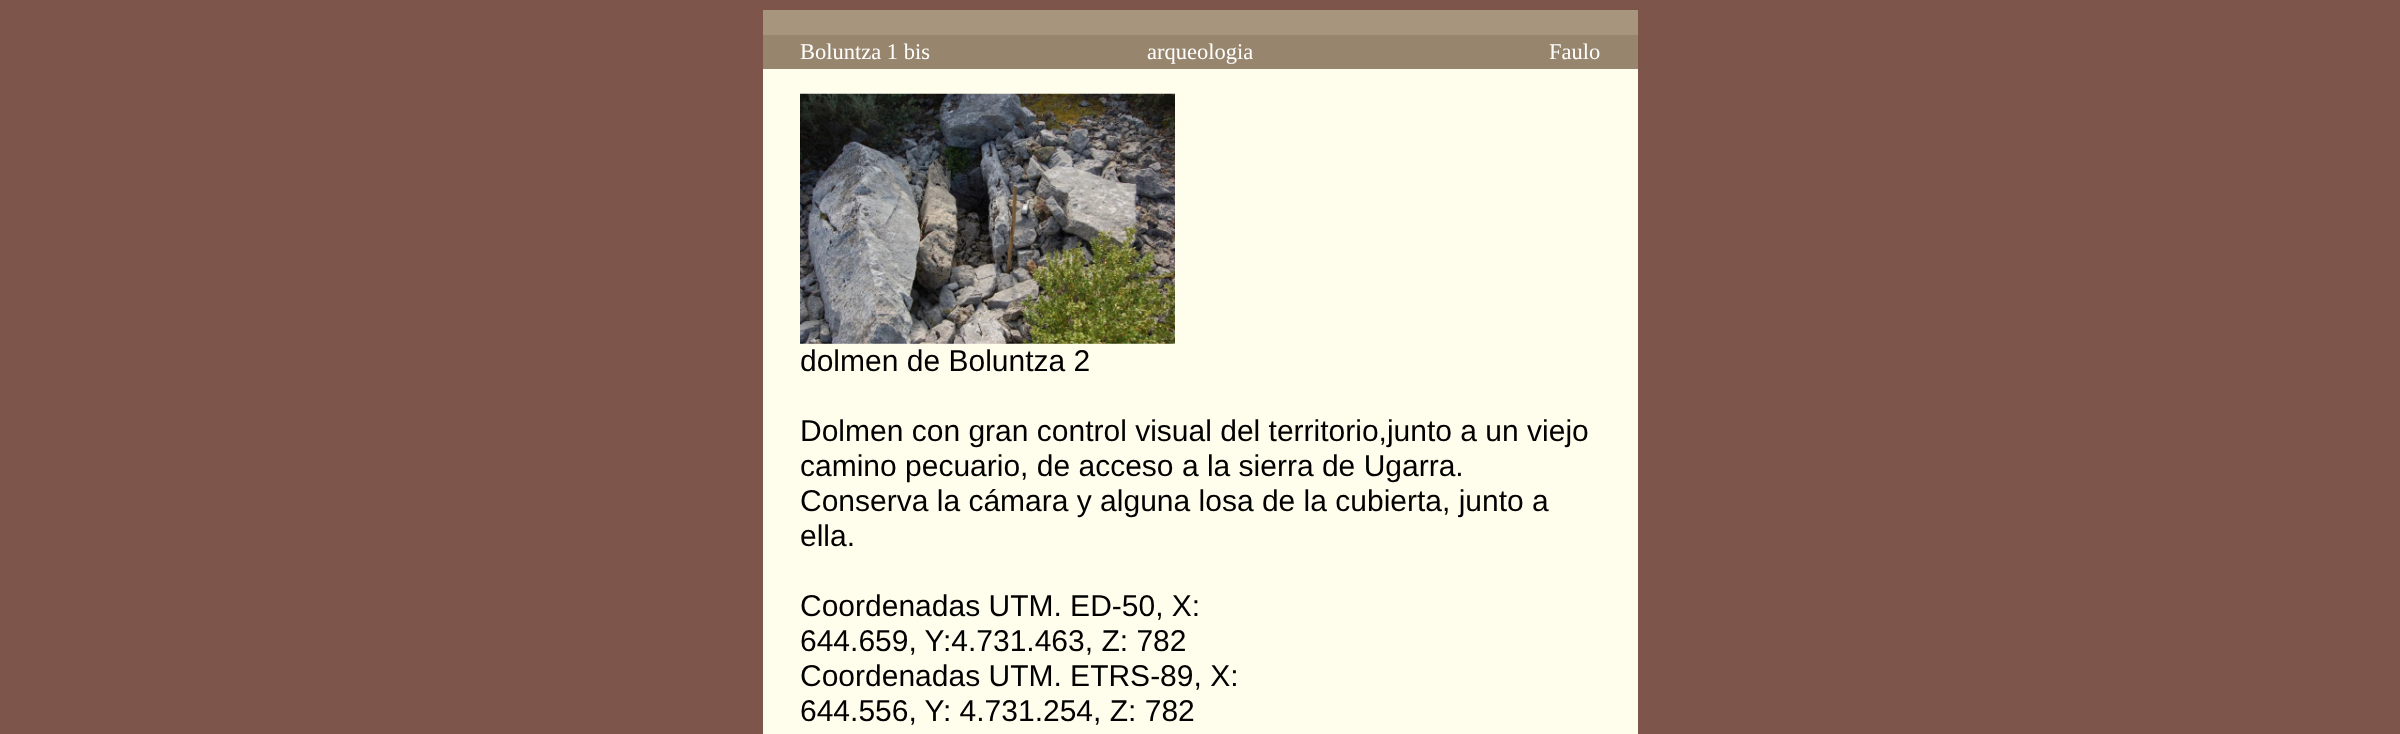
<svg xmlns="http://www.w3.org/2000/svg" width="2400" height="734">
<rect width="100%" height="100%" fill="#7d554b"/>
<rect x="763" y="69" width="875" height="665" fill="#fffdeb"/>
<rect x="763" y="10" width="875" height="25" fill="#a7967d"/>
<rect x="763" y="35" width="875" height="34" fill="#97866d"/>
<text x="800" y="59" style="font-family:Liberation Serif;font-size:22.5px;fill:#fff">Boluntza 1 bis</text>
<text x="1147" y="59" style="font-family:Liberation Serif;font-size:22.5px;fill:#fff">arqueologia</text>
<text x="1549" y="59" style="font-family:Liberation Serif;font-size:22.5px;fill:#fff">Faulo</text>
<image x="800" y="93" width="375" height="251" href="media/1.png"/>
<text x="800" y="371" style="font-family:Liberation Sans;font-size:30px;fill:#000">dolmen de Boluntza 2</text>
<text x="800" y="441" style="font-family:Liberation Sans;font-size:30px;fill:#000">Dolmen con gran control visual del territorio,junto a un viejo</text>
<text x="800" y="476" style="font-family:Liberation Sans;font-size:30px;fill:#000">camino pecuario, de acceso a la sierra de Ugarra.</text>
<text x="800" y="511" style="font-family:Liberation Sans;font-size:30px;fill:#000">Conserva la cámara y alguna losa de la cubierta, junto a</text>
<text x="800" y="546" style="font-family:Liberation Sans;font-size:30px;fill:#000">ella.</text>
<text x="800" y="616" style="font-family:Liberation Sans;font-size:30px;fill:#000">Coordenadas UTM. ED-50, X:</text>
<text x="800" y="651" style="font-family:Liberation Sans;font-size:30px;fill:#000">644.659, Y:4.731.463, Z: 782</text>
<text x="800" y="686" style="font-family:Liberation Sans;font-size:30px;fill:#000">Coordenadas UTM. ETRS-89, X:</text>
<text x="800" y="721" style="font-family:Liberation Sans;font-size:30px;fill:#000">644.556, Y: 4.731.254, Z: 782</text>
</svg>
